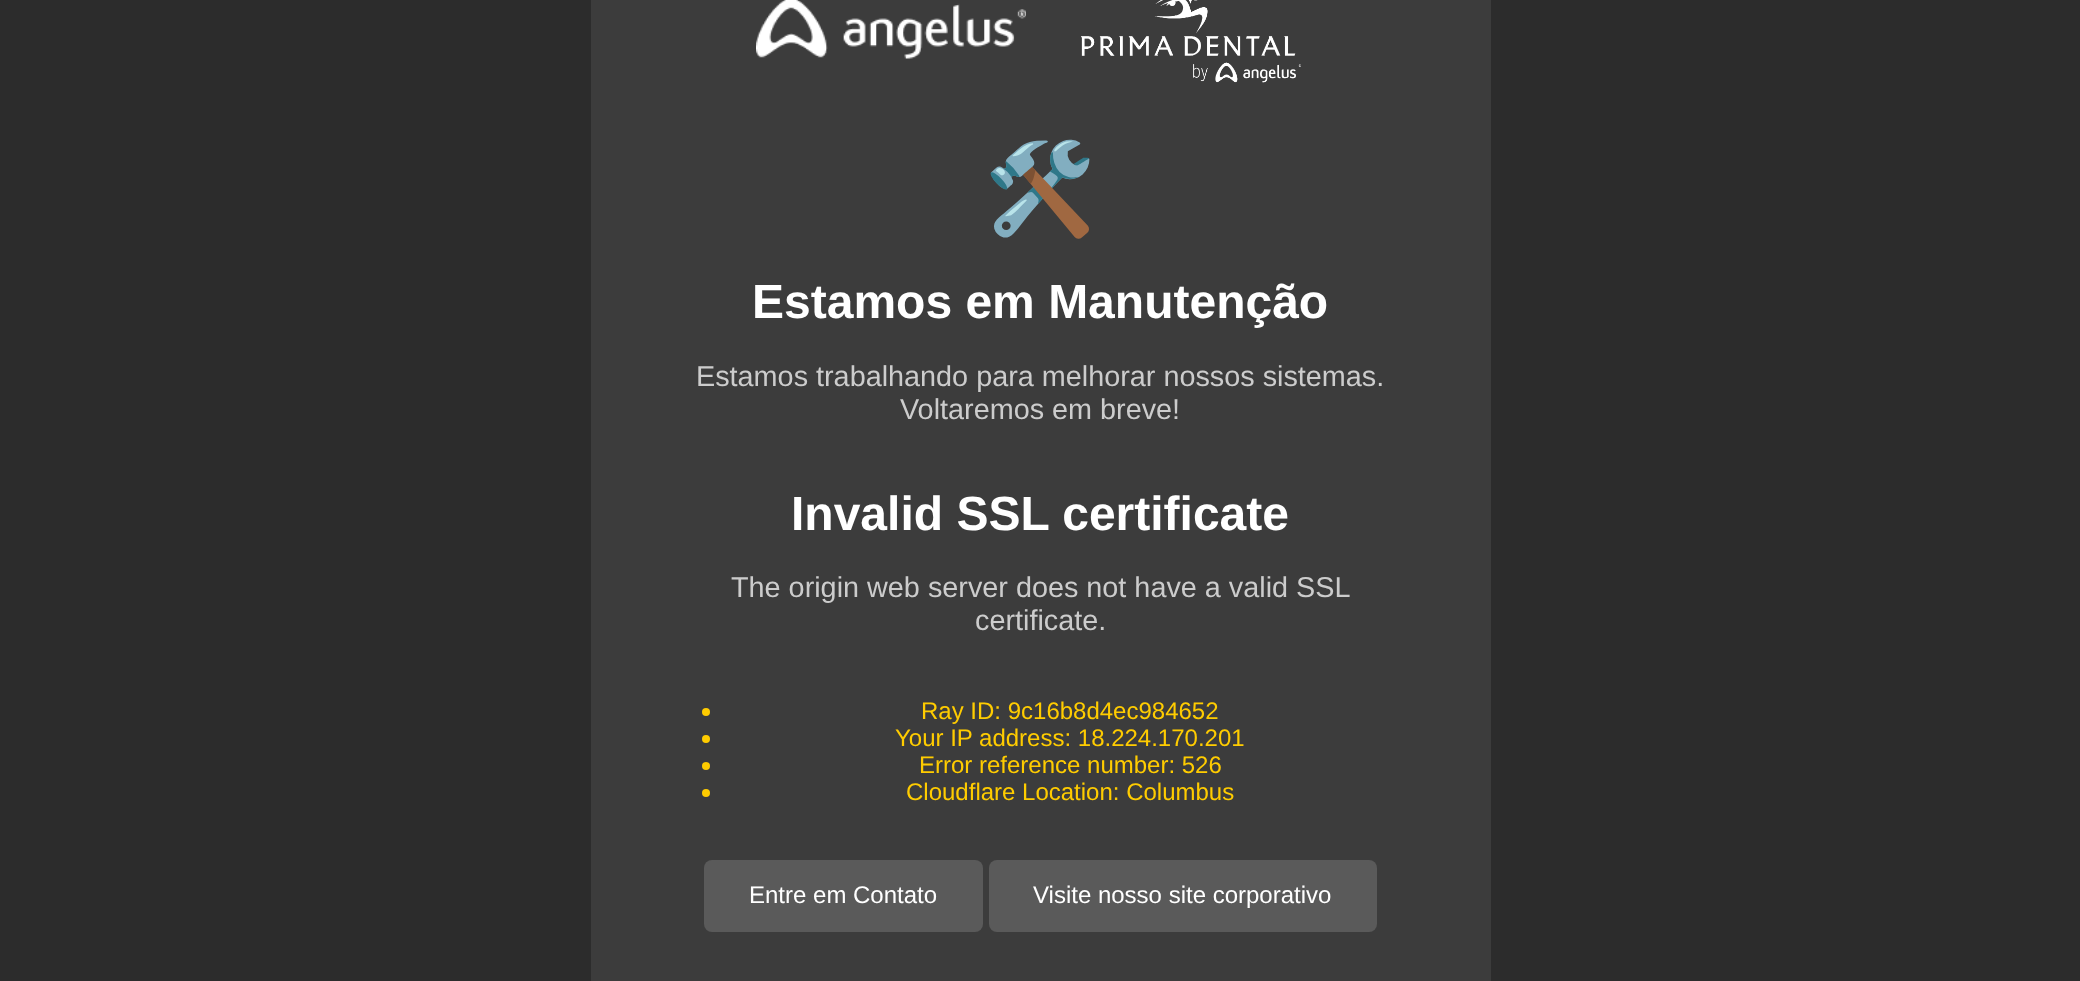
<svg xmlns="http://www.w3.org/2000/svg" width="2080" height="981">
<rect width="100%" height="100%" fill="#2c2c2c"/>
<rect x="591" width="900" height="981" fill="#3c3c3c"/>
<image x="756" y="0" width="270" height="59" href="media/1.png"/>
<image x="1081" y="0" width="220" height="83" href="media/2.png"/>
<text x="984" y="220" style="font-family:Noto Color Emoji;font-size:90px;fill:#fff">🛠️</text>
<text x="752" y="318" style="font-family:Liberation Sans;font-size:48px;font-weight:bold;fill:#fff">Estamos em Manutenção</text>
<text x="696" y="386" style="font-family:Liberation Sans;font-size:28.8px;fill:#ccc">Estamos trabalhando para melhorar nossos sistemas.</text>
<text x="900" y="419" style="font-family:Liberation Sans;font-size:28.8px;fill:#ccc">Voltaremos em breve!</text>
<text x="791" y="530" style="font-family:Liberation Sans;font-size:48px;font-weight:bold;fill:#fff">Invalid SSL certificate</text>
<text x="731" y="597" style="font-family:Liberation Sans;font-size:28.8px;fill:#ccc">The origin web server does not have a valid SSL</text>
<text x="975" y="630" style="font-family:Liberation Sans;font-size:28.8px;fill:#ccc">certificate.</text>
<circle cx="706" cy="712" r="4" fill="#fc0"/>
<text x="921" y="719" style="font-family:Liberation Sans;font-size:24px;fill:#fc0">Ray ID: 9c16b8d4ec984652</text>
<circle cx="706" cy="739" r="4" fill="#fc0"/>
<text x="895" y="746" style="font-family:Liberation Sans;font-size:24px;fill:#fc0">Your IP address: 18.224.170.201</text>
<circle cx="706" cy="766" r="4" fill="#fc0"/>
<text x="919" y="773" style="font-family:Liberation Sans;font-size:24px;fill:#fc0">Error reference number: 526</text>
<circle cx="706" cy="793" r="4" fill="#fc0"/>
<text x="906" y="800" style="font-family:Liberation Sans;font-size:24px;fill:#fc0">Cloudflare Location: Columbus</text>
<rect x="704" y="860" width="279" height="72" rx="8" fill="#5a5a5a"/>
<text x="749" y="903" style="font-family:Liberation Sans;font-size:24px;fill:#fff">Entre em Contato</text>
<rect x="989" y="860" width="388" height="72" rx="8" fill="#5a5a5a"/>
<text x="1033" y="903" style="font-family:Liberation Sans;font-size:24px;fill:#fff">Visite nosso site corporativo</text>
</svg>
